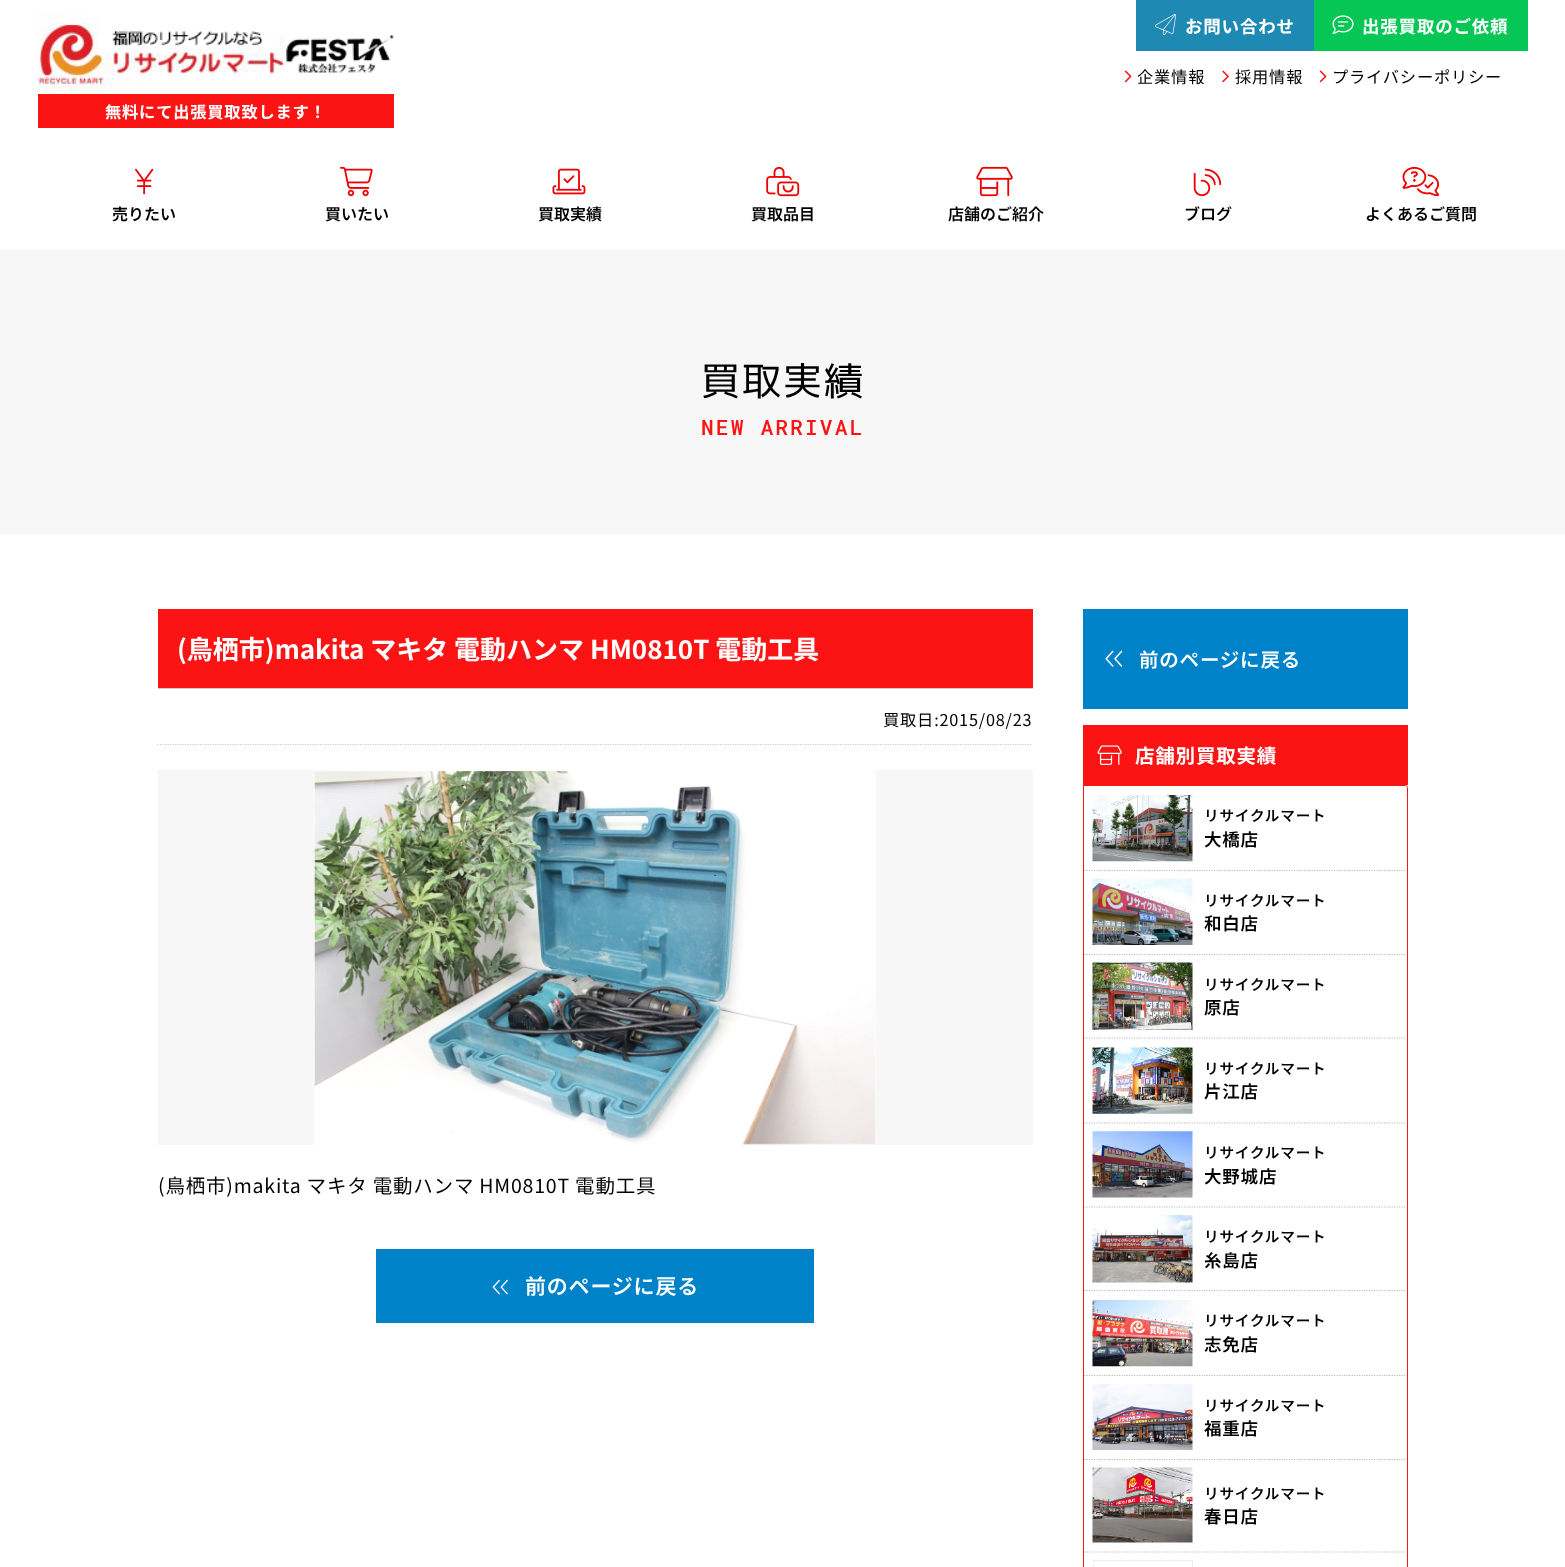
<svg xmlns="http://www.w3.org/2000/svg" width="1565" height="1567">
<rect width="100%" height="100%" fill="#fff"/>
<rect x="1136" width="178" height="51" fill="#1e89b3"/>
<image x="1155" y="14" width="22" height="22" href="media/1.png"/>
<text x="1185" y="33" style="font-family:Noto Sans JP;font-size:17.5px;font-weight:bold;letter-spacing:0.8px;fill:#fff">お問い合わせ</text>
<rect x="1314" width="214" height="51" fill="#06c755"/>
<image x="1332" y="15" width="22" height="19" href="media/2.png"/>
<text x="1362" y="33" style="font-family:Noto Sans JP;font-size:17.5px;font-weight:bold;letter-spacing:0.8px;fill:#fff">出張買取のご依頼</text>
<image x="1124" y="70" width="8" height="13" href="media/3.png"/>
<text x="1137" y="83" style="font-family:Noto Sans JP;font-size:16.25px;letter-spacing:0.8px;fill:#000">企業情報</text>
<image x="1222" y="70" width="7" height="13" href="media/4.png"/>
<text x="1235" y="83" style="font-family:Noto Sans JP;font-size:16.25px;letter-spacing:0.8px;fill:#000">採用情報</text>
<image x="1319" y="70" width="8" height="13" href="media/3.png"/>
<text x="1332" y="83" style="font-family:Noto Sans JP;font-size:16.25px;letter-spacing:0.8px;fill:#000">プライバシーポリシー</text>
<image x="37" y="12" width="357" height="81" href="media/5.png"/>
<rect x="38" y="94" width="356" height="34" fill="#fc1414"/>
<text x="105" y="118" style="font-family:Noto Sans JP;font-size:16.25px;font-weight:bold;letter-spacing:0.8px;fill:#fff">無料にて出張買取致します！</text>
<image x="135" y="168" width="19" height="27" href="media/6.png"/>
<text x="112" y="220" style="font-family:Noto Sans JP;font-size:16px;font-weight:600;fill:#000">売りたい</text>
<image x="340" y="166" width="33" height="31" href="media/7.png"/>
<text x="325" y="220" style="font-family:Noto Sans JP;font-size:16px;font-weight:600;fill:#000">買いたい</text>
<image x="552" y="168" width="34" height="27" href="media/8.png"/>
<text x="538" y="220" style="font-family:Noto Sans JP;font-size:16px;font-weight:600;fill:#000">買取実績</text>
<image x="766" y="166" width="34" height="31" href="media/9.png"/>
<text x="751" y="220" style="font-family:Noto Sans JP;font-size:16px;font-weight:600;fill:#000">買取品目</text>
<image x="976" y="166" width="37" height="31" href="media/10.png"/>
<text x="948" y="220" style="font-family:Noto Sans JP;font-size:16px;font-weight:600;fill:#000">店舗のご紹介</text>
<image x="1193" y="168" width="29" height="29" href="media/11.png"/>
<text x="1184" y="220" style="font-family:Noto Sans JP;font-size:16px;font-weight:600;fill:#000">ブログ</text>
<image x="1402" y="166" width="38" height="31" href="media/12.png"/>
<text x="1365" y="220" style="font-family:Noto Sans JP;font-size:16px;font-weight:600;fill:#000">よくあるご質問</text>
<rect y="250" width="1565" height="284" fill="#f7f7f7"/>
<text x="701" y="395" style="font-family:'M PLUS 2';font-size:39px;letter-spacing:2px;fill:#000">買取実績</text>
<text x="701" y="435" style="font-family:Roboto Mono;font-size:21.25px;font-weight:500;letter-spacing:2.1px;fill:#fc1414">NEW ARRIVAL</text>
<rect x="158" y="609" width="875" height="79" fill="#fc1414"/>
<rect x="158" y="688" width="875" height="1" fill="#ccc"/>
<text x="177" y="659" style="font-family:Noto Sans JP;font-size:26px;font-weight:bold;fill:#fff">(鳥栖市)makita マキタ 電動ハンマ HM0810T 電動工具</text>
<path d="M157.5 744.5h875" fill="none" stroke="#ccc" stroke-width="1.2" stroke-dasharray="1.25 1.25"/>
<text x="883" y="726" style="font-family:Noto Sans JP;font-size:16.25px;letter-spacing:0.8px;fill:#000">買取日:2015/08/23</text>
<rect x="158" y="770" width="875" height="375" fill="#f7f7f7"/>
<image x="313" y="770" width="563" height="375" href="media/13.png"/>
<text x="158" y="1193" style="font-family:Noto Sans JP;font-size:19.5px;letter-spacing:0.8px;fill:#000">(鳥栖市)makita マキタ 電動ハンマ HM0810T 電動工具</text>
<rect x="376" y="1249" width="438" height="74" fill="#0082c8"/>
<image x="492" y="1279" width="16" height="16" href="media/14.png"/>
<text x="525" y="1294" style="font-family:Noto Sans JP;font-size:21px;font-weight:600;letter-spacing:0.8px;fill:#fff">前のページに戻る</text>
<rect x="1083" y="609" width="325" height="100" fill="#0082c8"/>
<image x="1105" y="650" width="18" height="17" href="media/15.png"/>
<text x="1139" y="667" style="font-family:Noto Sans JP;font-size:19.5px;font-weight:600;letter-spacing:0.8px;fill:#fff">前のページに戻る</text>
<rect x="1083" y="725" width="325" height="60" fill="#fc1414"/>
<image x="1097" y="745" width="25" height="20" href="media/16.png"/>
<text x="1135" y="763" style="font-family:Noto Sans JP;font-size:19.5px;font-weight:bold;letter-spacing:0.8px;fill:#fff">店舗別買取実績</text>
<path d="M1083.5 785.5h322c1 0 2 1 2 2v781c0 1-1 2-2 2h-322z" fill="none" stroke="#fc1414"/>
<path d="M1084 870.5h322" fill="none" stroke="#bbb" stroke-width="1.2" stroke-dasharray="1.25 1.25"/>
<image x="1092" y="795" width="101" height="67" href="media/17.png"/>
<text x="1204" y="821" style="font-family:Noto Sans JP;font-size:14.6px;font-weight:600;letter-spacing:0.8px;fill:#000">リサイクルマート</text>
<text x="1204" y="846" style="font-family:Noto Sans JP;font-size:17.5px;font-weight:600;letter-spacing:0.8px;fill:#000">大橋店</text>
<path d="M1084 954.5h322" fill="none" stroke="#bbb" stroke-width="1.2" stroke-dasharray="1.25 1.25"/>
<image x="1092" y="878" width="101" height="67" href="media/18.png"/>
<text x="1204" y="906" style="font-family:Noto Sans JP;font-size:14.6px;font-weight:600;letter-spacing:0.8px;fill:#000">リサイクルマート</text>
<text x="1204" y="930" style="font-family:Noto Sans JP;font-size:17.5px;font-weight:600;letter-spacing:0.8px;fill:#000">和白店</text>
<path d="M1084 1038h322" fill="none" stroke="#bbb" stroke-width="1.2" stroke-dasharray="1.25 1.25"/>
<image x="1092" y="962" width="101" height="68" href="media/19.png"/>
<text x="1204" y="990" style="font-family:Noto Sans JP;font-size:14.6px;font-weight:600;letter-spacing:0.8px;fill:#000">リサイクルマート</text>
<text x="1204" y="1014" style="font-family:Noto Sans JP;font-size:17.5px;font-weight:600;letter-spacing:0.8px;fill:#000">原店</text>
<path d="M1084 1123h322" fill="none" stroke="#bbb" stroke-width="1.2" stroke-dasharray="1.25 1.25"/>
<image x="1092" y="1047" width="101" height="67" href="media/20.png"/>
<text x="1204" y="1074" style="font-family:Noto Sans JP;font-size:14.6px;font-weight:600;letter-spacing:0.8px;fill:#000">リサイクルマート</text>
<text x="1204" y="1098" style="font-family:Noto Sans JP;font-size:17.5px;font-weight:600;letter-spacing:0.8px;fill:#000">片江店</text>
<path d="M1084 1207h322" fill="none" stroke="#bbb" stroke-width="1.2" stroke-dasharray="1.25 1.25"/>
<image x="1092" y="1131" width="101" height="67" href="media/21.png"/>
<text x="1204" y="1158" style="font-family:Noto Sans JP;font-size:14.6px;font-weight:600;letter-spacing:0.8px;fill:#000">リサイクルマート</text>
<text x="1204" y="1183" style="font-family:Noto Sans JP;font-size:17.5px;font-weight:600;letter-spacing:0.8px;fill:#000">大野城店</text>
<path d="M1084 1290.5h322" fill="none" stroke="#bbb" stroke-width="1.2" stroke-dasharray="1.25 1.25"/>
<image x="1092" y="1215" width="101" height="68" href="media/22.png"/>
<text x="1204" y="1242" style="font-family:Noto Sans JP;font-size:14.6px;font-weight:600;letter-spacing:0.8px;fill:#000">リサイクルマート</text>
<text x="1204" y="1267" style="font-family:Noto Sans JP;font-size:17.5px;font-weight:600;letter-spacing:0.8px;fill:#000">糸島店</text>
<path d="M1084 1375.5h322" fill="none" stroke="#bbb" stroke-width="1.2" stroke-dasharray="1.25 1.25"/>
<image x="1092" y="1300" width="101" height="67" href="media/23.png"/>
<text x="1204" y="1326" style="font-family:Noto Sans JP;font-size:14.6px;font-weight:600;letter-spacing:0.8px;fill:#000">リサイクルマート</text>
<text x="1204" y="1351" style="font-family:Noto Sans JP;font-size:17.5px;font-weight:600;letter-spacing:0.8px;fill:#000">志免店</text>
<path d="M1084 1459.5h322" fill="none" stroke="#bbb" stroke-width="1.2" stroke-dasharray="1.25 1.25"/>
<image x="1092" y="1383" width="101" height="67" href="media/24.png"/>
<text x="1204" y="1411" style="font-family:Noto Sans JP;font-size:14.6px;font-weight:600;letter-spacing:0.8px;fill:#000">リサイクルマート</text>
<text x="1204" y="1435" style="font-family:Noto Sans JP;font-size:17.5px;font-weight:600;letter-spacing:0.8px;fill:#000">福重店</text>
<path d="M1084 1552h322" fill="none" stroke="#bbb" stroke-width="1.2" stroke-dasharray="1.25 1.25"/>
<image x="1092" y="1467" width="101" height="76" href="media/25.png"/>
<text x="1204" y="1499" style="font-family:Noto Sans JP;font-size:14.6px;font-weight:600;letter-spacing:0.8px;fill:#000">リサイクルマート</text>
<text x="1204" y="1523" style="font-family:Noto Sans JP;font-size:17.5px;font-weight:600;letter-spacing:0.8px;fill:#000">春日店</text>
<rect x="1093.5" y="1560.5" width="99" height="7" fill="none" stroke="#eee"/>
<rect x="1093" y="1562" width="1" height="5" fill="#f2f2f2"/>
</svg>
